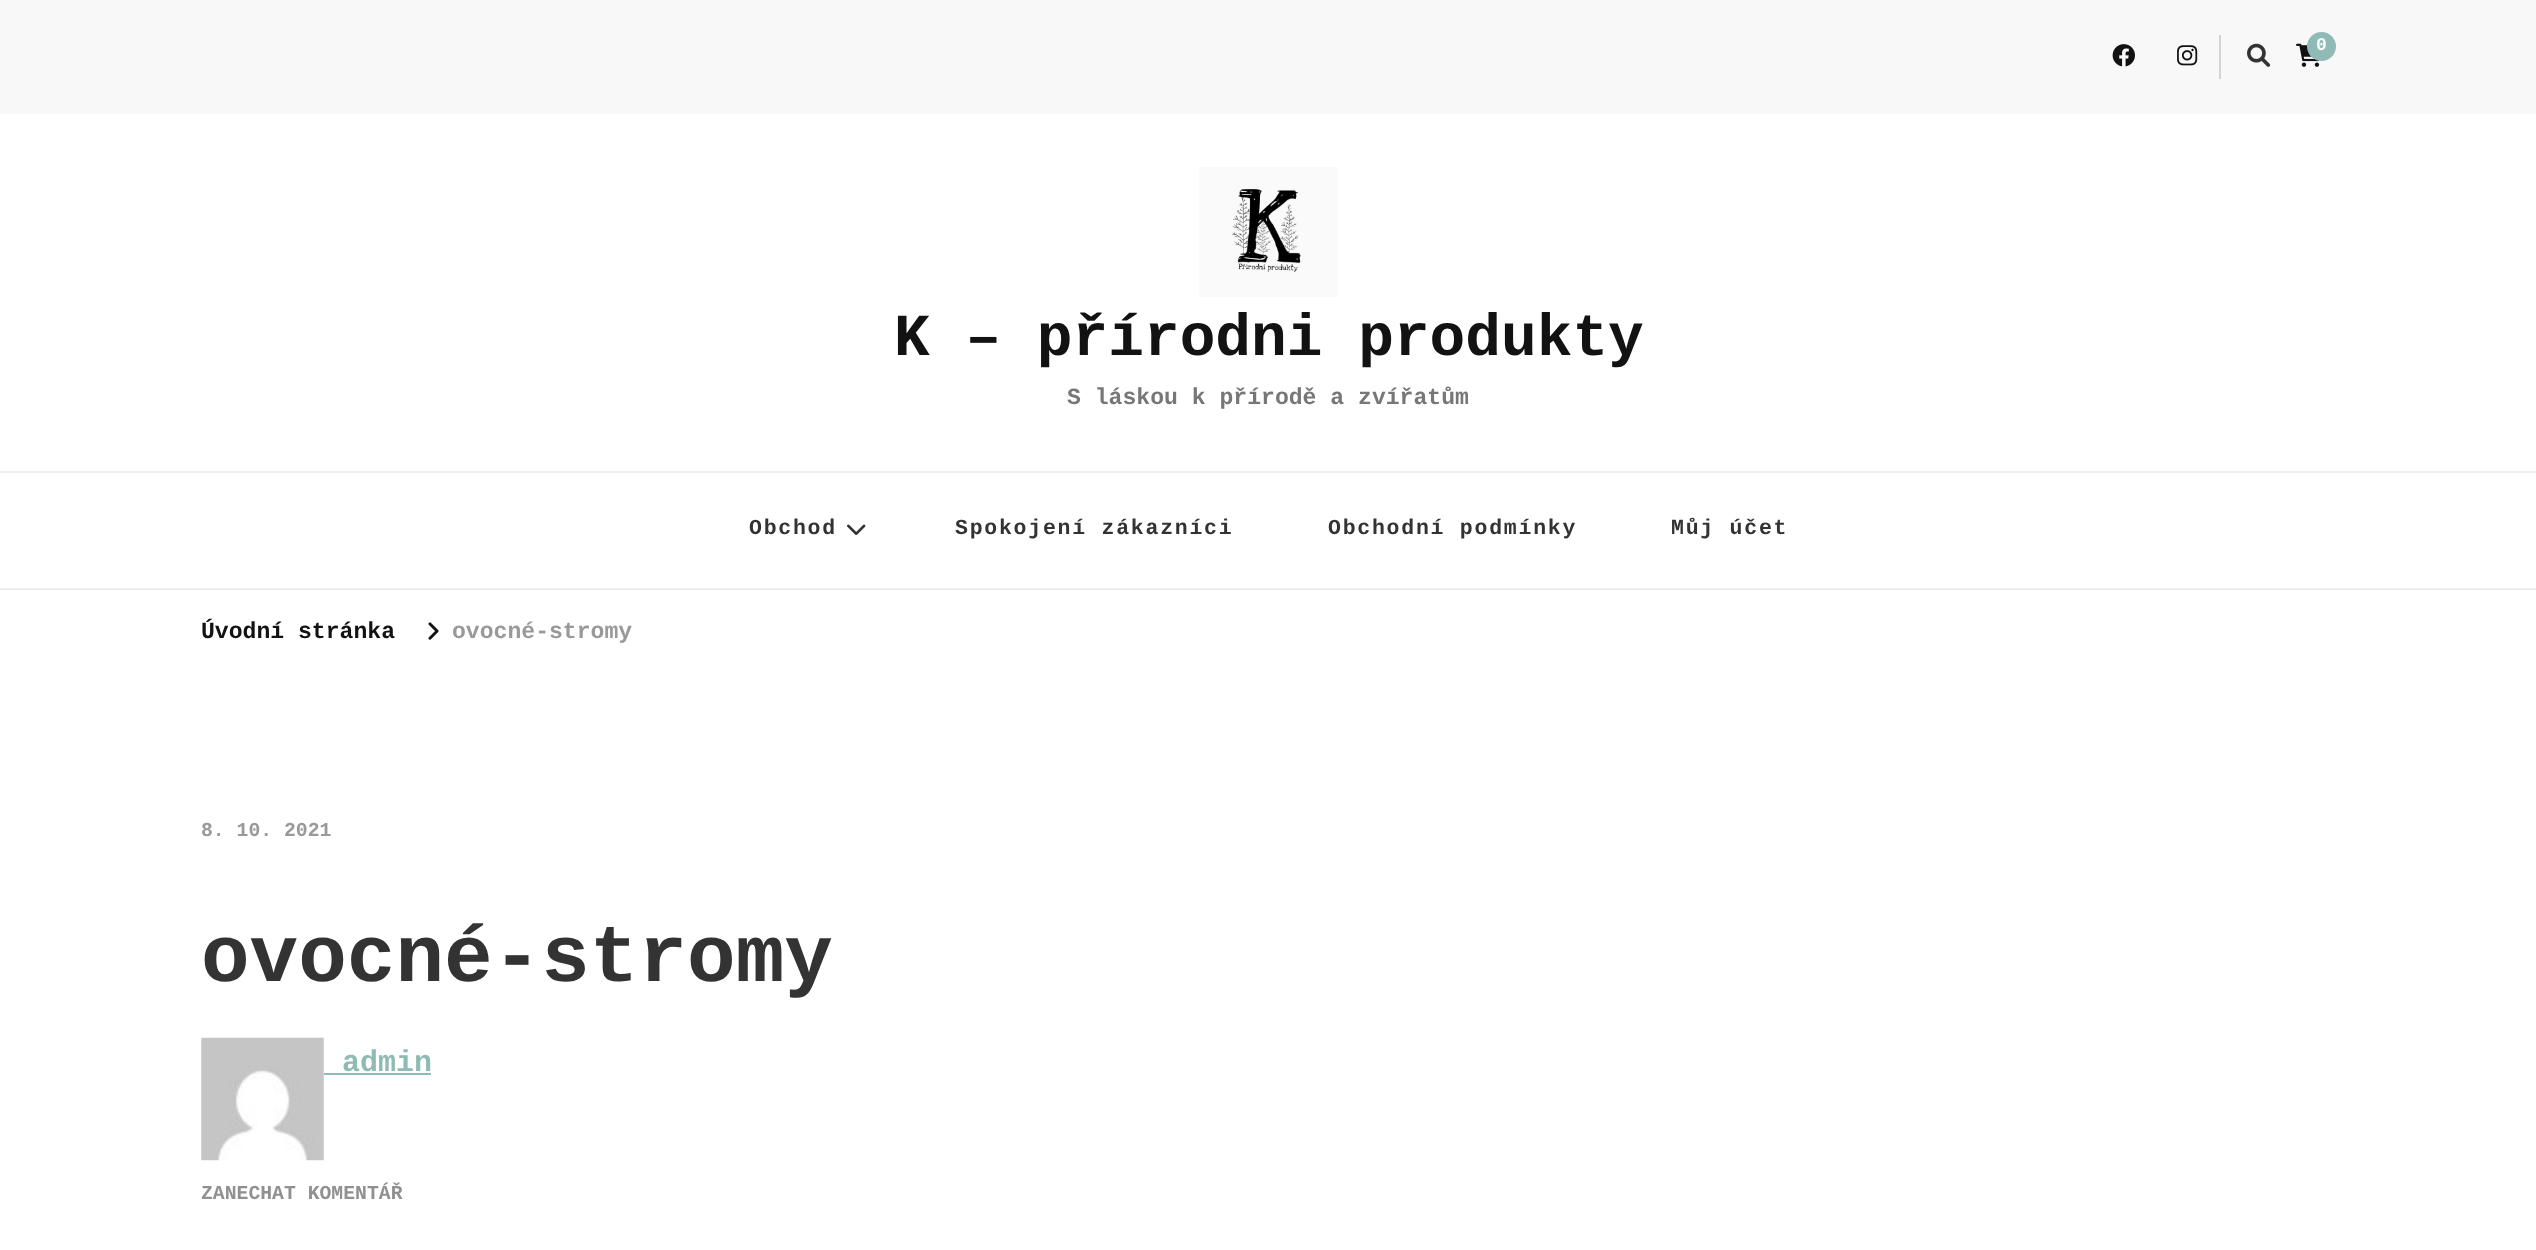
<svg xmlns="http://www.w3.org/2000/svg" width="2536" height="1250">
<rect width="100%" height="100%" fill="#fff"/>
<rect width="2536" height="114" fill="#f8f8f8"/>
<image x="2112" y="44" width="23" height="23" href="media/1.png"/>
<image x="2177" y="45" width="21" height="21" href="media/2.png"/>
<rect x="2219" y="35" width="2" height="44" fill="#d3d3d3"/>
<image x="2247" y="43" width="24" height="24" href="media/3.png"/>
<image x="2296" y="43" width="24" height="24" href="media/4.png"/>
<circle cx="2321.5" cy="46.5" r="14.5" fill="#90bab5"/>
<text x="2316" y="50" style="font-family:Liberation Mono;font-size:18px;font-weight:bold;fill:#fff">0</text>
<image x="1199" y="167" width="139" height="130" href="media/5.png"/>
<text x="894" y="355" style="font-family:Liberation Mono;font-size:59.5px;font-weight:bold;fill:#121212">K – přírodni produkty</text>
<text x="1067" y="404" style="font-family:Liberation Mono;font-size:23.1px;font-weight:bold;fill:#777">S láskou k přírodě a zvířatům</text>
<rect y="471" width="2536" height="2" fill="#ededed"/>
<rect y="588" width="2536" height="2" fill="#ededed"/>
<text x="749" y="534" style="font-family:Liberation Mono;font-size:21.5px;font-weight:bold;letter-spacing:1.75px;fill:#333">Obchod</text>
<image x="847" y="524" width="19" height="11" href="media/6.png"/>
<text x="955" y="534" style="font-family:Liberation Mono;font-size:21.5px;font-weight:bold;letter-spacing:1.75px;fill:#333">Spokojení zákazníci</text>
<text x="1328" y="534" style="font-family:Liberation Mono;font-size:21.5px;font-weight:bold;letter-spacing:1.75px;fill:#333">Obchodní podmínky</text>
<text x="1671" y="534" style="font-family:Liberation Mono;font-size:21.5px;font-weight:bold;letter-spacing:1.75px;fill:#333">Můj účet</text>
<text x="201" y="638" style="font-family:Liberation Mono;font-size:23.1px;font-weight:bold;fill:#121212">Úvodní stránka</text>
<image x="428" y="622" width="11" height="18" href="media/7.png"/>
<text x="452" y="638" style="font-family:Liberation Mono;font-size:23.1px;font-weight:bold;fill:#999">ovocné-stromy</text>
<text x="201" y="836" style="font-family:Liberation Mono;font-size:19.75px;font-weight:bold;fill:#999">8. 10. 2021</text>
<text x="201" y="981" style="font-family:Liberation Mono;font-size:81px;font-weight:bold;fill:#333">ovocné-stromy</text>
<image x="201" y="1037" width="123" height="124" href="media/8.png"/>
<text x="342" y="1071" style="font-family:Liberation Mono;font-size:30px;font-weight:bold;fill:#90bab5">admin</text>
<rect x="324" y="1073" width="107" height="2" fill="#90bab5"/>
<text x="201" y="1199" style="font-family:Liberation Mono;font-size:19.75px;font-weight:bold;fill:#909090">ZANECHAT KOMENTÁŘ</text>
</svg>
